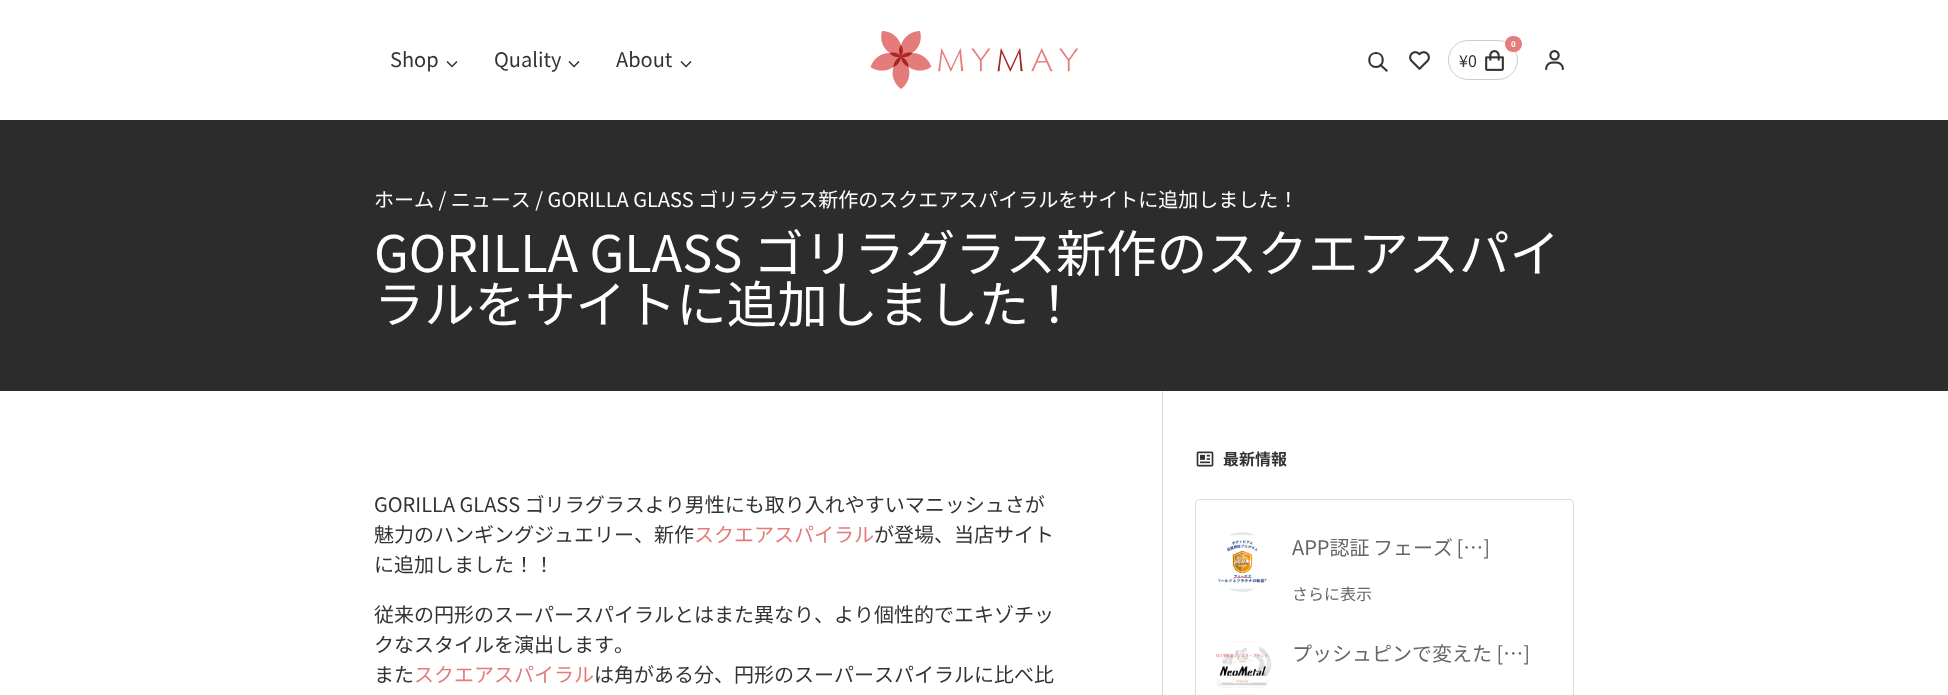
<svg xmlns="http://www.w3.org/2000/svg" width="1948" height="695">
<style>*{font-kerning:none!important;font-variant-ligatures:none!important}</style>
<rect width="100%" height="100%" fill="#fff"/>
<text x="390" y="67" style="font-family:Noto Sans JP;font-size:20px;fill:#333">Shop</text>
<path d="M447.5 62l4.5 4.5m4.5-4.5l-4.5 4.5" fill="none" stroke="#333" stroke-width="1.5" stroke-linecap="square"/>
<text x="494" y="67" style="font-family:Noto Sans JP;font-size:20px;fill:#333">Quality</text>
<path d="M569.5 62l4.5 4.5m4.5-4.5l-4.5 4.5" fill="none" stroke="#333" stroke-width="1.5" stroke-linecap="square"/>
<text x="616" y="67" style="font-family:Noto Sans JP;font-size:20px;fill:#333">About</text>
<path d="M681.5 62l4.5 4.5m4.5-4.5l-4.5 4.5" fill="none" stroke="#333" stroke-width="1.5" stroke-linecap="square"/>
<image x="870" y="31" width="209" height="58" href="media/1.png"/>
<path d="M1380.5 65l6 5.5m-10.5-17.5c9 0 9 14 0 14c-9 0-9-14 0-14" fill="none" stroke="#333" stroke-width="2.1" stroke-linecap="square"/>
<image x="1409" y="51" width="21" height="19" href="media/2.png"/>
<rect x="1448.5" y="40.5" width="69" height="39" rx="19.5" fill="none" stroke="#ccc"/>
<rect x="1505" y="36" width="17" height="16" rx="8" fill="#e47c7c"/>
<text x="1511" y="47" style="font-family:Noto Sans JP;font-size:8px;font-weight:bold;fill:#fff">0</text>
<text x="1459" y="67" style="font-family:Noto Sans JP;font-size:16px;fill:#333">¥0</text>
<image x="1485" y="50" width="19" height="21" href="media/3.png"/>
<image x="1545" y="50" width="19" height="20" href="media/4.png"/>
<rect y="120" width="1948" height="271" fill="#2c2c2c"/>
<text x="374" y="207" style="font-family:Noto Sans JP;font-size:20px;fill:#fff">ホーム / ニュース / GORILLA GLASS ゴリラグラス新作のスクエアスパイラルをサイトに追加しました！</text>
<text x="374" y="272" style="font-family:Noto Sans JP;font-size:50.4px;fill:#fff">GORILLA GLASS ゴリラグラス新作のスクエアスパイ</text>
<text x="374" y="323" style="font-family:Noto Sans JP;font-size:50.4px;fill:#fff">ラルをサイトに追加しました！</text>
<text x="374" y="512" style="font-family:Noto Sans JP;font-size:20px;fill:#333">GORILLA GLASS ゴリラグラスより男性にも取り入れやすいマニッシュさが</text>
<text x="374" y="542" style="font-family:Noto Sans JP;font-size:20px;fill:#333">魅力のハンギングジュエリー、新作</text>
<text x="694" y="542" style="font-family:Noto Sans JP;font-size:20px;fill:#e47c7c">スクエアスパイラル</text>
<text x="874" y="542" style="font-family:Noto Sans JP;font-size:20px;fill:#333">が登場、当店サイト</text>
<text x="374" y="572" style="font-family:Noto Sans JP;font-size:20px;fill:#333">に追加しました！！</text>
<text x="374" y="622" style="font-family:Noto Sans JP;font-size:20px;fill:#333">従来の円形のスーパースパイラルとはまた異なり、より個性的でエキゾチッ</text>
<text x="374" y="652" style="font-family:Noto Sans JP;font-size:20px;fill:#333">クなスタイルを演出します。</text>
<text x="374" y="682" style="font-family:Noto Sans JP;font-size:20px;fill:#333">また</text>
<text x="414" y="682" style="font-family:Noto Sans JP;font-size:20px;fill:#e47c7c">スクエアスパイラル</text>
<text x="594" y="682" style="font-family:Noto Sans JP;font-size:20px;fill:#333">は角がある分、円形のスーパースパイラルに比べ比</text>
<rect x="1162" y="391" width="1" height="304" fill="#dadada"/>
<image x="1196" y="451" width="18" height="16" href="media/5.png"/>
<text x="1223" y="465" style="font-family:Noto Sans JP;font-size:16px;font-weight:bold;fill:#333">最新情報</text>
<rect x="1195.5" y="499.5" width="378" height="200" rx="3.5" fill="none" stroke="#ddd"/>
<image x="1217" y="532" width="50" height="60" href="media/6.png"/>
<text x="1292" y="555" word-spacing="-1" style="font-family:Noto Sans JP;font-size:20px;fill:#666">APP認証 フェーズ […]</text>
<text x="1292" y="600" style="font-family:Noto Sans JP;font-size:16px;fill:#666">さらに表示</text>
<image x="1216" y="641" width="56" height="54" href="media/7.png"/>
<text x="1292" y="661" style="font-family:Noto Sans JP;font-size:20px;fill:#666">プッシュピンで変えた […]</text>
</svg>
